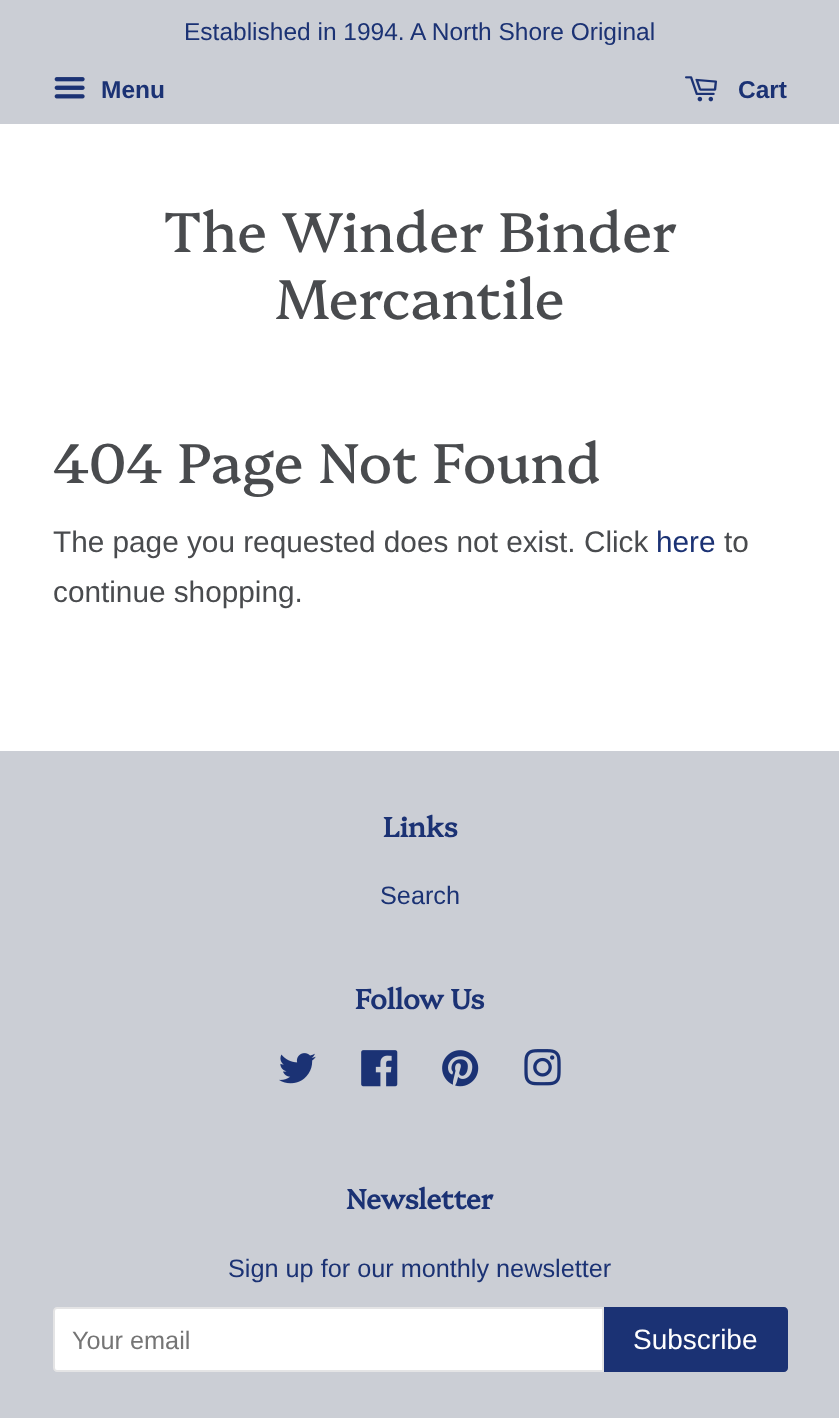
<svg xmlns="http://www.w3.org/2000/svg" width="839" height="1418">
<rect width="100%" height="100%" fill="#fff"/>
<rect width="839" height="124" fill="#cbced5"/>
<text x="184" y="40" style="font-family:Liberation Sans;font-size:24.5px;fill:#1b3274">Established in 1994.</text>
<text x="410" y="40" style="font-family:Liberation Sans;font-size:24.5px;fill:#1b3274">A North Shore Original</text>
<image x="54" y="77" width="31" height="22" href="media/1.png"/>
<text x="101" y="98" style="font-family:Liberation Sans;font-size:24.5px;font-weight:bold;fill:#1b3274">Menu</text>
<image x="685" y="76" width="32" height="26" href="media/2.png"/>
<text x="738" y="98" style="font-family:Liberation Sans;font-size:24.5px;font-weight:bold;fill:#1b3274">Cart</text>
<text x="163" y="252" style="font-family:Platypi;font-size:56px;fill:#494b4e">The Winder Binder</text>
<text x="276" y="319" style="font-family:Platypi;font-size:56px;fill:#494b4e">Mercantile</text>
<text x="53" y="483" style="font-family:Platypi;font-size:56px;fill:#494b4e">404 Page Not Found</text>
<text x="53" y="552" style="font-family:Liberation Sans;font-size:29.75px;fill:#494b4e">The page you requested does not exist. Click</text>
<text x="656" y="552" style="font-family:Liberation Sans;font-size:29.75px;fill:#1b3274">here</text>
<text x="724" y="552" style="font-family:Liberation Sans;font-size:29.75px;fill:#494b4e">to</text>
<text x="53" y="602" style="font-family:Liberation Sans;font-size:29.75px;fill:#494b4e">continue shopping.</text>
<rect y="751" width="839" height="667" fill="#cbced5"/>
<text x="383" y="837" style="font-family:Platypi;font-size:28px;font-weight:bold;fill:#1b3274">Links</text>
<text x="380" y="904" style="font-family:Liberation Sans;font-size:25.25px;fill:#1b3274">Search</text>
<text x="355" y="1009" style="font-family:Platypi;font-size:28px;font-weight:bold;fill:#1b3274">Follow Us</text>
<image x="279" y="1053" width="37" height="31" href="media/3.png"/>
<image x="361" y="1050" width="37" height="37" href="media/4.png"/>
<image x="442" y="1050" width="37" height="37" href="media/5.png"/>
<image x="524" y="1049" width="37" height="37" href="media/6.png"/>
<text x="346" y="1209" style="font-family:Platypi;font-size:28px;font-weight:bold;fill:#1b3274">Newsletter</text>
<text x="228" y="1277" style="font-family:Liberation Sans;font-size:25.25px;fill:#1b3274">Sign up for our monthly newsletter</text>
<path d="M57 1307h547v65h-547c-2 0-4-2-4-4v-57c0-2 2-4 4-4z" fill="#fff"/>
<path d="M57 1308h546v63h-546c-1.5 0-3-1.5-3-3v-57c0-1.5 1.5-3 3-3z" fill="none" stroke="#494b4e26" stroke-width="2"/>
<text x="72" y="1349" style="font-family:Liberation Sans;font-size:25.25px;fill:#757575">Your email</text>
<path d="M604 1307h180c2 0 4 2 4 4v57c0 2-2 4-4 4h-180z" fill="#1b3274"/>
<text x="633" y="1349" style="font-family:Liberation Sans;font-size:28px;fill:#fff">Subscribe</text>
</svg>
